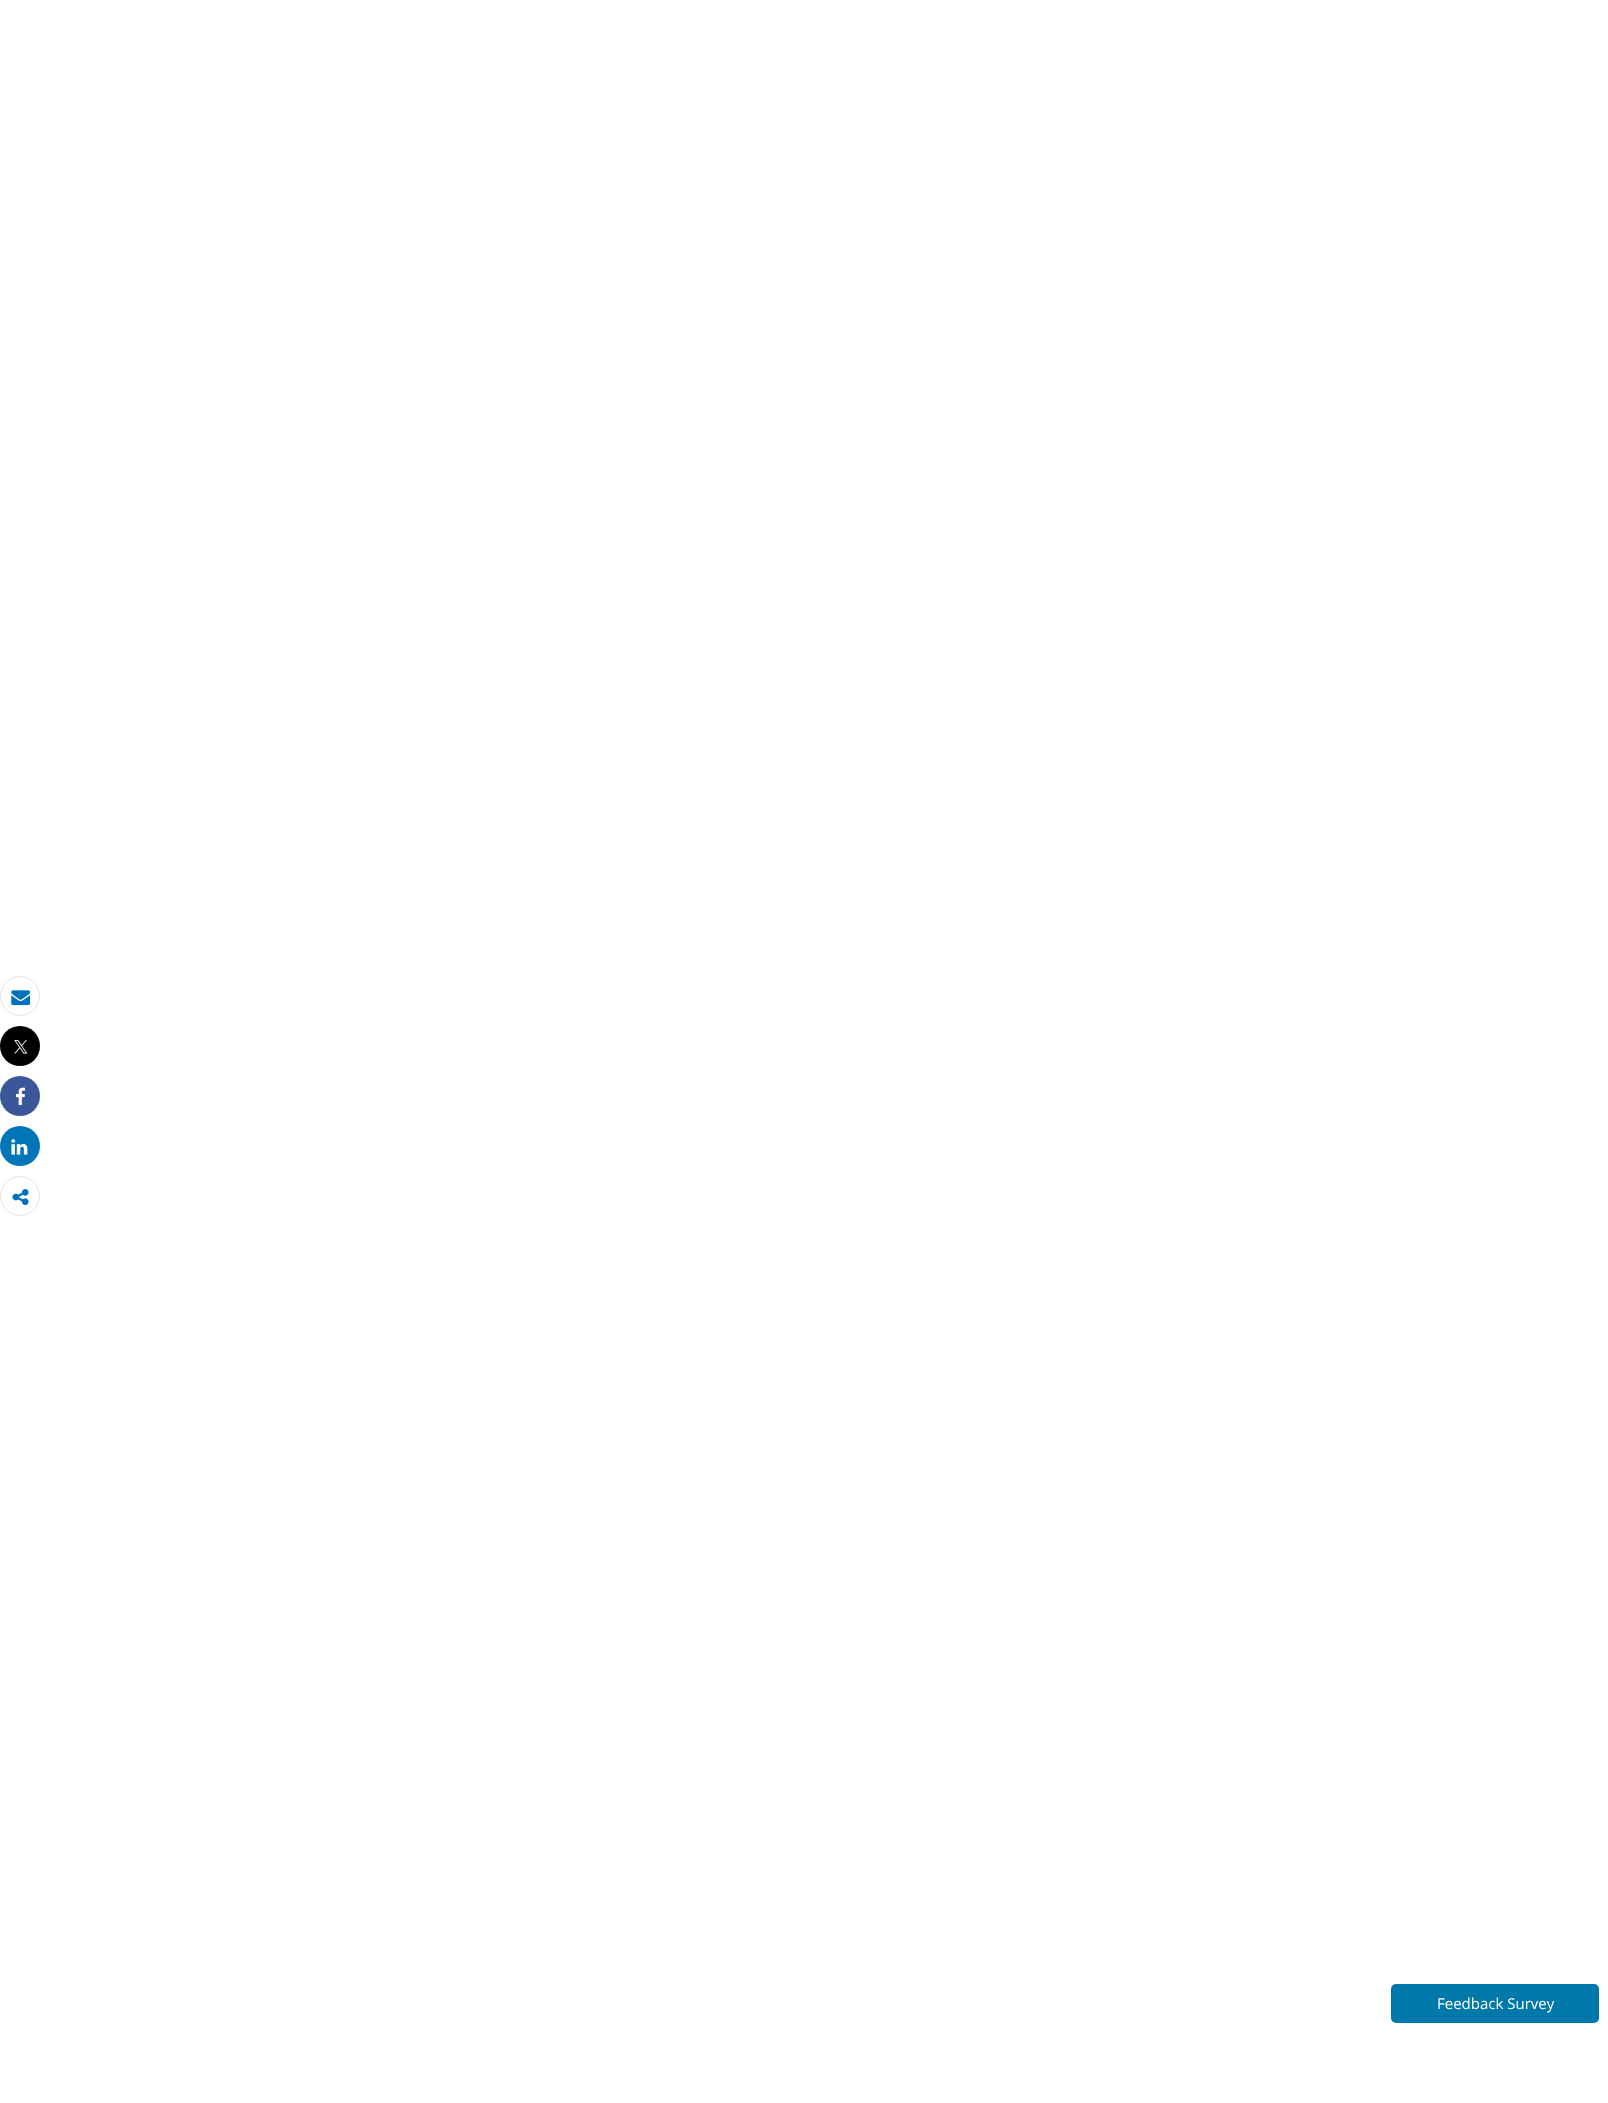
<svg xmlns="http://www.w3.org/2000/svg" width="1608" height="2103">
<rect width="100%" height="100%" fill="#fff"/>
<circle cx="20" cy="996" r="19.5" fill="none" stroke="#e5e5e5"/>
<image x="11" y="990" width="19" height="16" href="media/1.png"/>
<circle cx="20" cy="1046" r="19.5" fill="none" stroke="#e5e5e5"/>
<circle cx="20" cy="1046" r="20" fill="#000"/>
<image x="14" y="1040" width="14" height="14" href="media/2.png"/>
<circle cx="20" cy="1096" r="20" fill="#3c569a"/>
<image x="16" y="1087" width="10" height="19" href="media/3.png"/>
<circle cx="20" cy="1146" r="20" fill="#0075b7"/>
<image x="11" y="1139" width="17" height="16" href="media/4.png"/>
<circle cx="20" cy="1196" r="19.5" fill="none" stroke="#e5e5e5"/>
<image x="12" y="1189" width="17" height="17" href="media/5.png"/>
<rect x="1391" y="1984" width="208" height="39" rx="5" fill="#0079aa"/>
<text x="1437" y="2009" style="font-family:Open Sans;font-size:15px;fill:#fff">Feedback Survey</text>
</svg>
